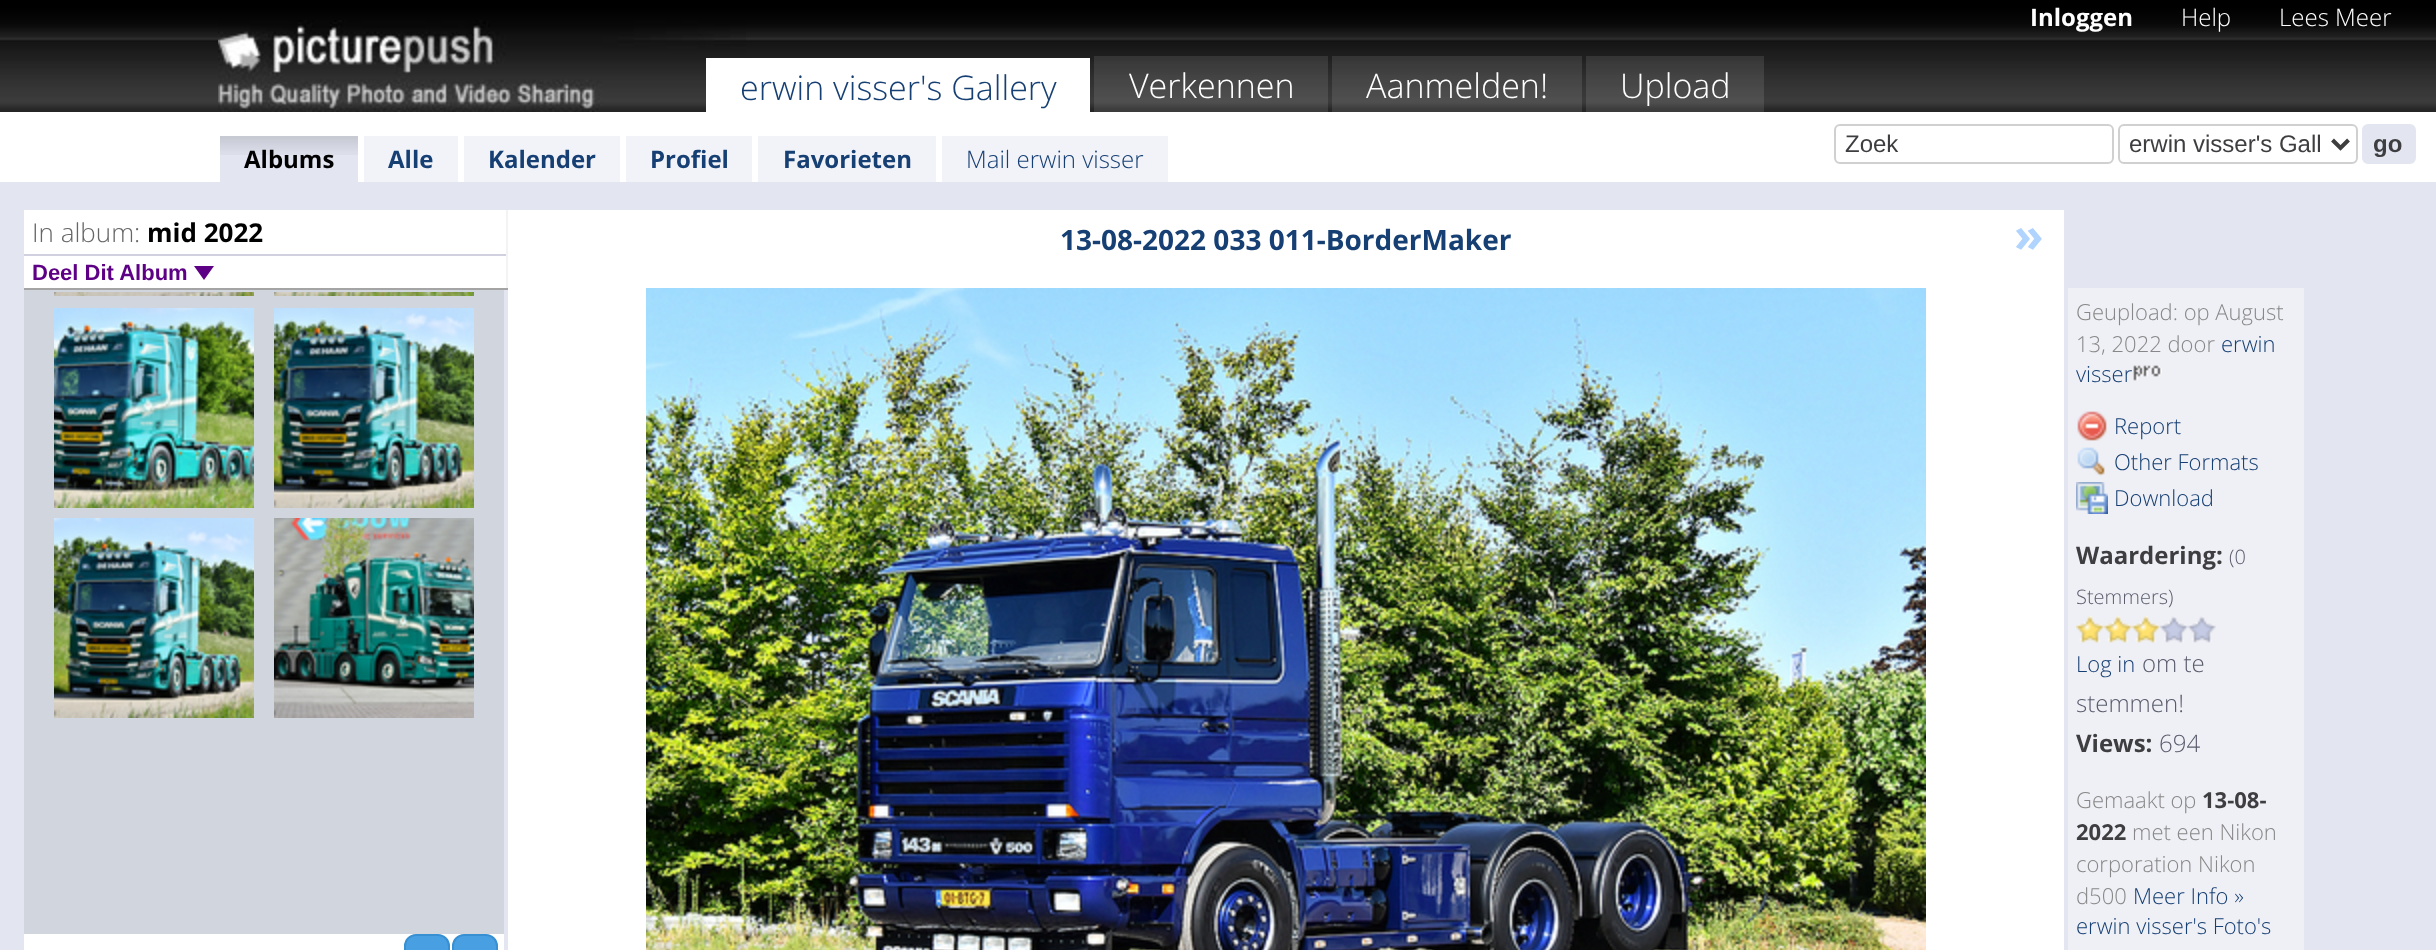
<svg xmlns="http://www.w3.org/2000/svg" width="2436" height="950">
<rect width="100%" height="100%" fill="#e3e6f1"/>
<image x="0" y="0" width="2436" height="112" href="media/1.png"/>
<image x="218" y="20" width="528" height="92" href="media/2.png"/>
<rect x="706" y="58" width="384" height="54" fill="#fff"/>
<text x="740" y="100" style="font-family:Open Sans;font-size:34px;font-weight:300;fill:#163f73">erwin visser's Gallery</text>
<rect x="1094" y="56" width="234" height="56" fill="#ffffff1a"/>
<text x="1129" y="98" style="font-family:Open Sans;font-size:34px;font-weight:300;fill:#fff">Verkennen</text>
<rect x="1332" y="56" width="250" height="56" fill="#ffffff1a"/>
<text x="1366" y="98" style="font-family:Open Sans;font-size:34px;font-weight:300;fill:#fff">Aanmelden!</text>
<rect x="1586" y="56" width="178" height="56" fill="#ffffff1a"/>
<text x="1620" y="98" style="font-family:Open Sans;font-size:34px;font-weight:300;fill:#fff">Upload</text>
<text x="2030" y="26" style="font-family:Open Sans;font-size:24px;font-weight:bold;fill:#fff">Inloggen</text>
<text x="2181" y="26" style="font-family:Open Sans;font-size:24px;font-weight:300;fill:#fff">Help</text>
<text x="2279" y="26" style="font-family:Open Sans;font-size:24px;font-weight:300;fill:#fff">Lees Meer</text>
<rect y="112" width="2436" height="70" fill="#fff"/>
<rect x="220" y="136" width="138" height="46" fill="#e3e6f1"/>
<image x="220" y="136" width="138" height="19" href="media/3.png"/>
<text x="244" y="168" style="font-family:Open Sans;font-size:24px;font-weight:bold;fill:#000">Albums</text>
<rect x="364" y="136" width="94" height="46" fill="#f1f3f9"/>
<text x="388" y="168" style="font-family:Open Sans;font-size:24px;font-weight:bold;fill:#163f73">Alle</text>
<rect x="464" y="136" width="156" height="46" fill="#f1f3f9"/>
<text x="488" y="168" style="font-family:Open Sans;font-size:24px;font-weight:bold;fill:#163f73">Kalender</text>
<rect x="626" y="136" width="126" height="46" fill="#f1f3f9"/>
<text x="650" y="168" style="font-family:Open Sans;font-size:24px;font-weight:bold;fill:#163f73">Profiel</text>
<rect x="758" y="136" width="178" height="46" fill="#f1f3f9"/>
<text x="783" y="168" style="font-family:Open Sans;font-size:24px;font-weight:bold;fill:#163f73">Favorieten</text>
<rect x="942" y="136" width="226" height="46" fill="#f1f3f9"/>
<text x="966" y="168" style="font-family:Open Sans;font-size:24px;font-weight:300;fill:#163f73">Mail erwin visser</text>
<rect x="1835" y="125" width="278" height="38" rx="5" fill="none" stroke="#d0d0d0" stroke-width="2"/>
<text x="1845" y="152" style="font-family:Liberation Sans;font-size:24px;fill:#3e3e41">Zoek</text>
<rect x="2119" y="125" width="238" height="38" rx="5" fill="none" stroke="#d0d0d0" stroke-width="2"/>
<path d="M2332.5 140l8 8l8-8" fill="none" stroke="#3e3e3e" stroke-width="4"/>
<text x="2129" y="152" style="font-family:Liberation Sans;font-size:24px;fill:#3e3e41">erwin visser's Gall</text>
<rect x="2363" y="125" width="52" height="38" rx="5" fill="#e3e6f1" stroke="#e3e6f1" stroke-width="2"/>
<text x="2373" y="152" style="font-family:Liberation Sans;font-size:24px;font-weight:bold;fill:#3e3e41">go</text>
<rect x="24" y="210" width="482" height="78" fill="#fff"/>
<rect x="506" y="210" width="2" height="80" fill="#f3f3f3"/>
<rect x="24" y="288" width="484" height="2" fill="#a4a4a4"/>
<text x="32" y="242" style="font-family:Open Sans;font-size:26px;font-weight:300;fill:#666">In album:</text>
<text x="147" y="242" style="font-family:Open Sans;font-size:26px;font-weight:bold;fill:#000">mid 2022</text>
<rect x="24" y="254" width="482" height="2" fill="#d0d0e0"/>
<text x="32" y="280" style="font-family:Liberation Sans;font-size:22px;font-weight:bold;fill:#5e0085">Deel Dit Album</text>
<path d="M194 266h20l-10 14z" fill="#5e0085"/>
<rect x="24" y="290" width="480" height="644" fill="#d1d5dd"/>
<image x="54" y="292" width="200" height="4" href="media/4.png"/>
<image x="274" y="292" width="200" height="4" href="media/5.png"/>
<image x="54" y="308" width="200" height="200" href="media/6.png"/>
<image x="274" y="308" width="200" height="200" href="media/7.png"/>
<image x="54" y="518" width="200" height="200" href="media/8.png"/>
<image x="274" y="518" width="200" height="200" href="media/9.png"/>
<rect x="24" y="934" width="480" height="16" fill="#fff"/>
<rect x="405" y="935" width="44" height="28" rx="11" fill="#48a0e3" stroke="#3890d3" stroke-width="2"/>
<rect x="453" y="935" width="44" height="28" rx="11" fill="#48a0e3" stroke="#3890d3" stroke-width="2"/>
<rect x="508" y="210" width="1556" height="740" fill="#fff"/>
<text x="1060" y="250" style="font-family:Open Sans;font-size:28px;font-weight:bold;fill:#163f73">13-08-2022 033 011-BorderMaker</text>
<text x="2014" y="252" style="font-family:Open Sans;font-size:48px;font-weight:bold;fill:#b0d4fe">»</text>
<image x="646" y="288" width="1280" height="662" href="media/10.png"/>
<rect x="2068" y="288" width="236" height="662" fill="#eff0f6"/>
<text x="2076" y="320" style="font-family:Open Sans;font-size:22px;font-weight:300;fill:#888">Geupload: op August</text>
<text x="2076" y="352" style="font-family:Open Sans;font-size:22px;font-weight:300;fill:#888">13, 2022 door</text>
<text x="2221" y="352" style="font-family:Open Sans;font-size:22px;font-weight:300;fill:#163f73">erwin</text>
<text x="2076" y="382" style="font-family:Open Sans;font-size:22px;font-weight:300;fill:#163f73">visser</text>
<image x="2133" y="365" width="29" height="16" href="media/11.png"/>
<image x="2077" y="411" width="30" height="30" href="media/12.png"/>
<text x="2114" y="434" style="font-family:Open Sans;font-size:22px;font-weight:300;fill:#163f73">Report</text>
<image x="2077" y="447" width="28" height="29" href="media/13.png"/>
<text x="2114" y="470" style="font-family:Open Sans;font-size:22px;font-weight:300;fill:#163f73">Other Formats</text>
<image x="2076" y="482" width="32" height="32" href="media/14.png"/>
<text x="2114" y="506" style="font-family:Open Sans;font-size:22px;font-weight:300;fill:#163f73">Download</text>
<text x="2076" y="564" style="font-family:Open Sans;font-size:24px;font-weight:bold;fill:#3e3e41">Waardering:</text>
<text x="2229" y="564" style="font-family:Open Sans;font-size:20px;font-weight:300;fill:#5a5c6c">(0</text>
<text x="2076" y="604" style="font-family:Open Sans;font-size:20px;font-weight:300;fill:#5a5c6c">Stemmers)</text>
<image x="2076" y="616" width="28" height="27" href="media/15.png"/>
<image x="2104" y="616" width="28" height="27" href="media/15.png"/>
<image x="2132" y="616" width="28" height="27" href="media/15.png"/>
<image x="2160" y="616" width="28" height="27" href="media/16.png"/>
<image x="2188" y="616" width="28" height="27" href="media/16.png"/>
<text x="2076" y="672" style="font-family:Open Sans;font-size:22px;font-weight:300;fill:#163f73">Log in</text>
<text x="2142" y="672" style="font-family:Open Sans;font-size:24px;font-weight:300;fill:#5a5c6c">om te</text>
<text x="2076" y="712" style="font-family:Open Sans;font-size:24px;font-weight:300;fill:#5a5c6c">stemmen!</text>
<text x="2076" y="752" style="font-family:Open Sans;font-size:24px;font-weight:bold;fill:#3e3e41">Views:</text>
<text x="2159" y="752" style="font-family:Open Sans;font-size:24px;font-weight:300;fill:#5a5c6c">694</text>
<text x="2076" y="808" style="font-family:Open Sans;font-size:22px;font-weight:300;fill:#888">Gemaakt op</text>
<text x="2202" y="808" style="font-family:Open Sans;font-size:22px;font-weight:bold;fill:#3e3e41">13-08-</text>
<text x="2076" y="840" style="font-family:Open Sans;font-size:22px;font-weight:bold;fill:#3e3e41">2022</text>
<text x="2132" y="840" style="font-family:Open Sans;font-size:22px;font-weight:300;fill:#888">met een Nikon</text>
<text x="2076" y="872" style="font-family:Open Sans;font-size:22px;font-weight:300;fill:#888">corporation Nikon</text>
<text x="2076" y="904" style="font-family:Open Sans;font-size:22px;font-weight:300;fill:#888">d500</text>
<text x="2133" y="904" style="font-family:Open Sans;font-size:22px;font-weight:300;fill:#163f73">Meer Info »</text>
<text x="2076" y="934" style="font-family:Open Sans;font-size:22px;font-weight:300;fill:#163f73">erwin visser's Foto's</text>
</svg>
